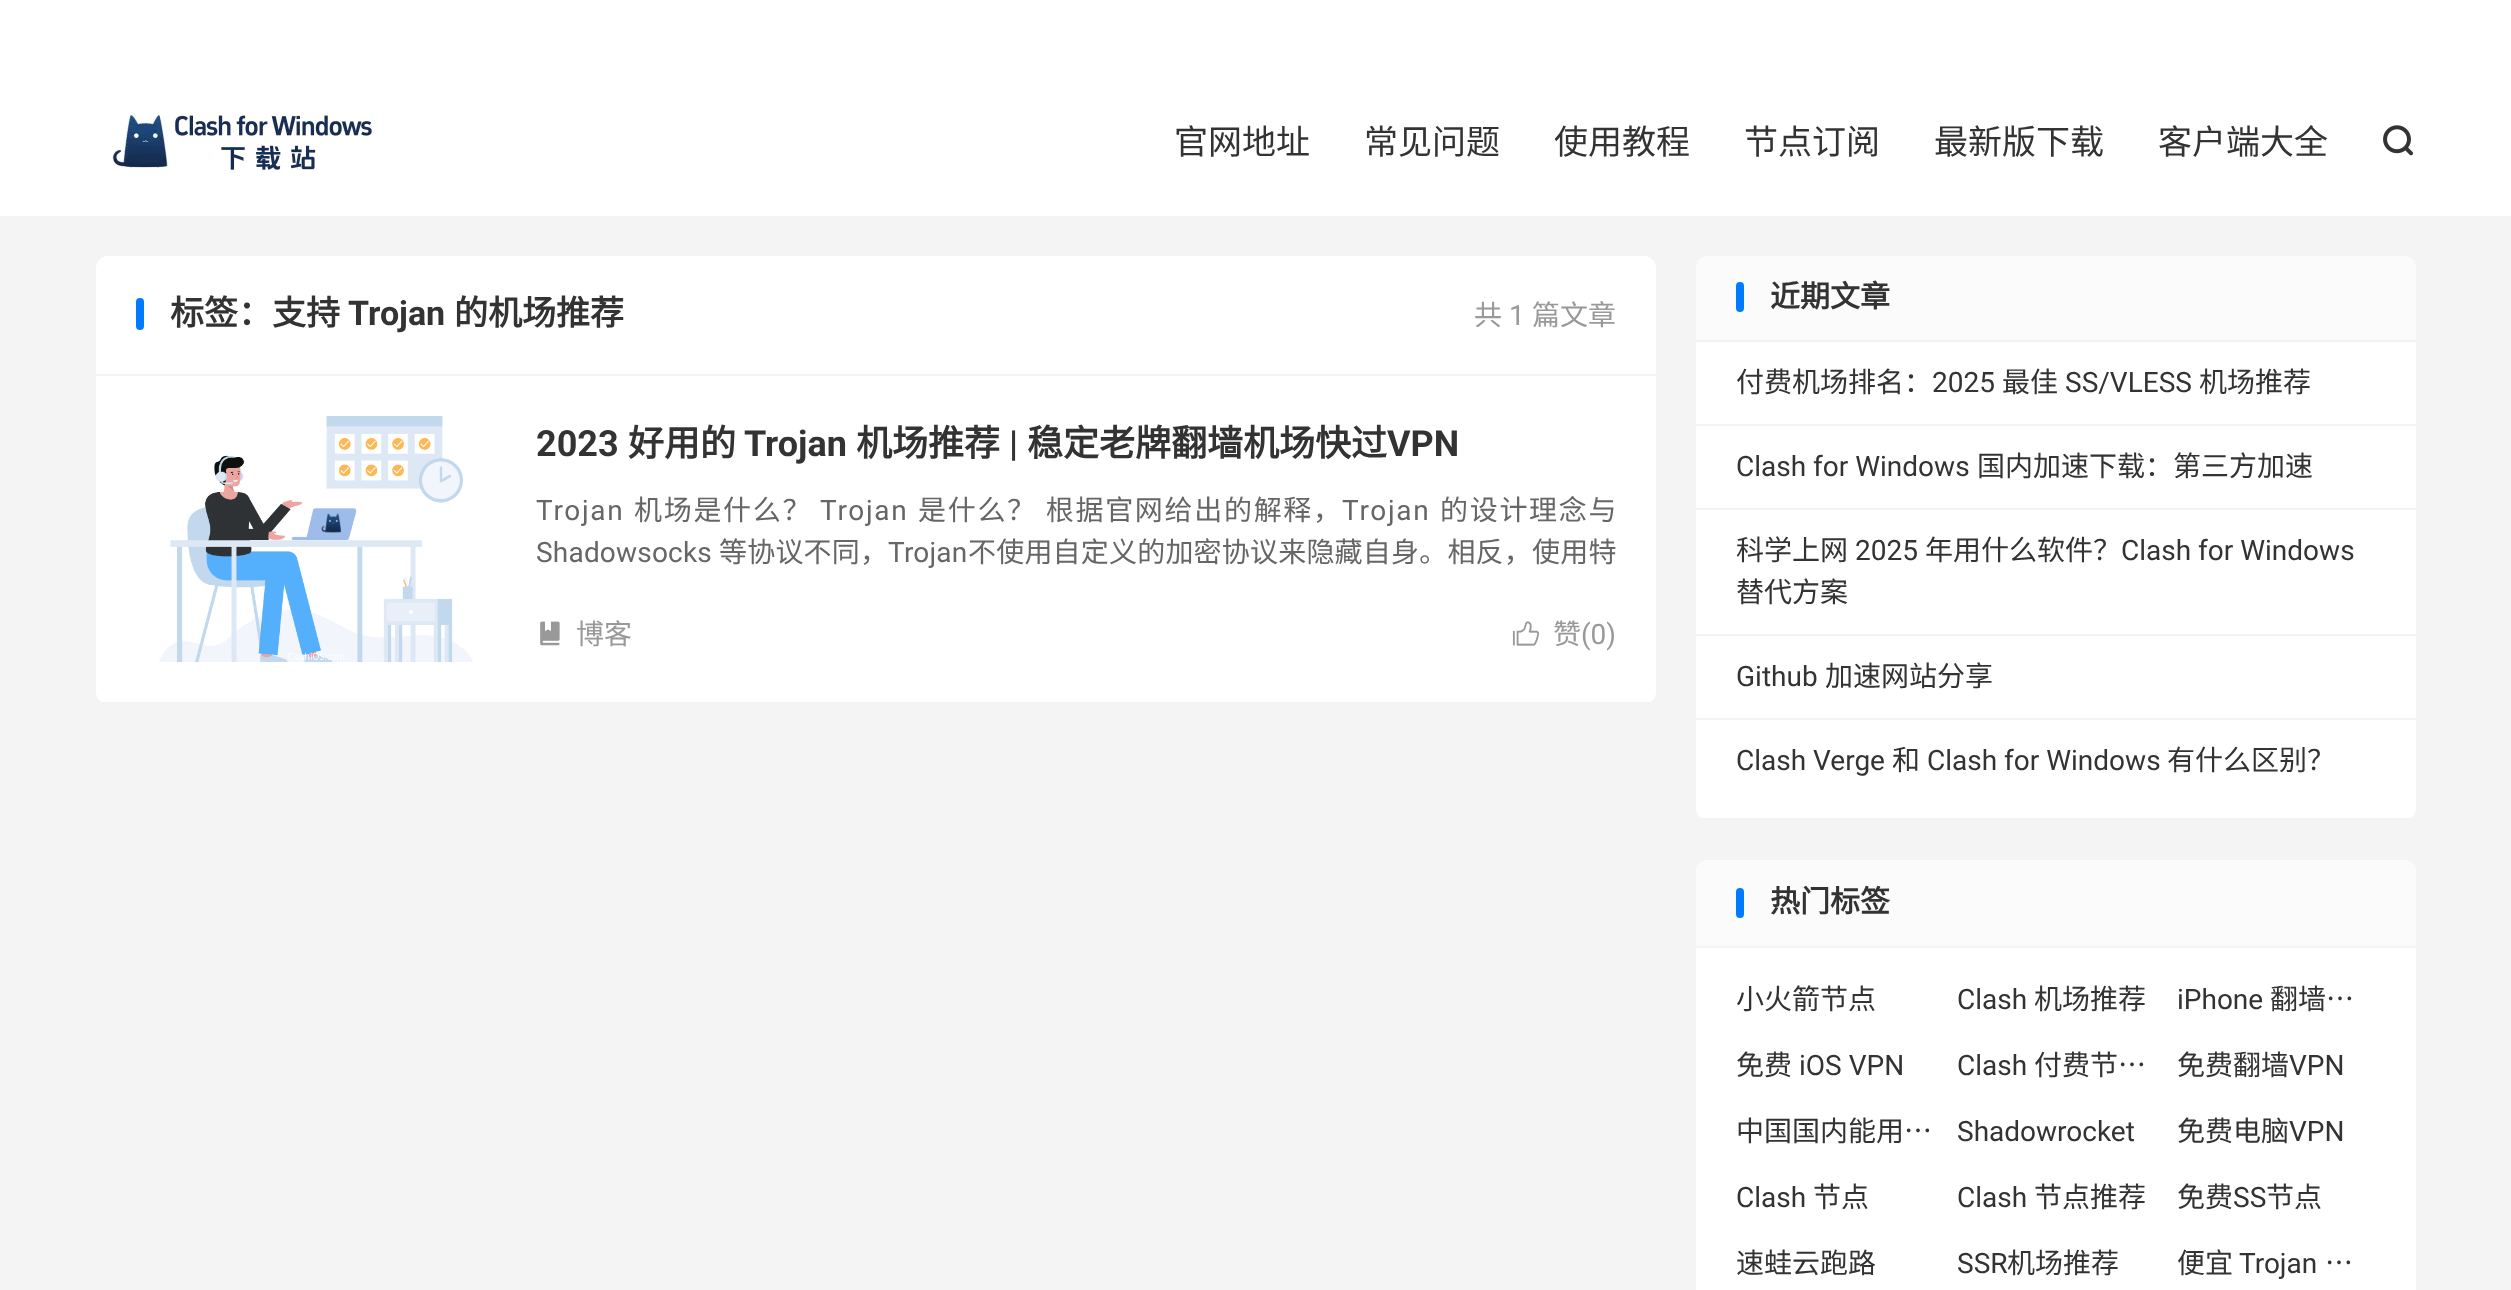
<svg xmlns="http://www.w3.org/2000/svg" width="2511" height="1290">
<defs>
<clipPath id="clip1"><rect x="1696" y="256" width="720" height="564" rx="12"/></clipPath>
</defs>
<rect width="100%" height="100%" fill="#f4f4f4"/>
<rect width="2511" height="216" fill="#fff"/>
<image x="112" y="115" width="260" height="55" href="media/1.png"/>
<text x="1174" y="154" style="font-family:Noto Sans CJK SC;font-size:34px;fill:#333">官网地址</text>
<text x="1364" y="154" style="font-family:Noto Sans CJK SC;font-size:34px;fill:#333">常见问题</text>
<text x="1554" y="154" style="font-family:Noto Sans CJK SC;font-size:34px;fill:#333">使用教程</text>
<text x="1744" y="154" style="font-family:Noto Sans CJK SC;font-size:34px;fill:#333">节点订阅</text>
<text x="1934" y="154" style="font-family:Noto Sans CJK SC;font-size:34px;fill:#333">最新版下载</text>
<text x="2158" y="154" style="font-family:Noto Sans CJK SC;font-size:34px;fill:#333">客户端大全</text>
<image x="2383" y="125" width="31" height="31" href="media/2.png"/>
<path d="M108 256h1536c6.5 0 12 5.5 12 12v108h-1560v-108c0-6.5 5.5-12 12-12z" fill="#fff"/>
<rect x="96" y="374" width="1560" height="2" fill="#f3f3f3"/>
<rect x="136" y="298" width="8" height="32" rx="4" fill="#007bff"/>
<text x="170" y="325" style="font-family:Noto Sans CJK SC;font-size:34px;font-weight:bold;fill:#333">标签：支持</text>
<text x="348" y="325" style="font-family:Roboto;font-size:34px;font-weight:bold;fill:#333">Trojan</text>
<text x="454" y="325" style="font-family:Noto Sans CJK SC;font-size:34px;font-weight:bold;fill:#333">的机场推荐</text>
<text x="1474" y="325" style="font-family:Noto Sans CJK SC;font-size:28px;fill:#999">共</text>
<text x="1509" y="325" style="font-family:Roboto;font-size:28px;fill:#999">1</text>
<text x="1532" y="325" style="font-family:Noto Sans CJK SC;font-size:28px;fill:#999">篇文章</text>
<path d="M96 376h1560v316c0 6.5-5.5 12-12 12h-1536c-6.5 0-12-5.5-12-12z" fill="#fff"/>
<rect x="102" y="702" width="1548" height="2" fill="#f3f3f3"/>
<image x="159" y="416" width="314" height="246" href="media/3.png"/>
<text x="536" y="456" style="font-family:Roboto;font-size:36px;font-weight:bold;fill:#333">2023</text>
<text x="628" y="456" style="font-family:Noto Sans CJK SC;font-size:36px;font-weight:bold;fill:#333">好用的</text>
<text x="744" y="456" style="font-family:Roboto;font-size:36px;font-weight:bold;fill:#333">Trojan</text>
<text x="856" y="456" style="font-family:Noto Sans CJK SC;font-size:36px;font-weight:bold;fill:#333">机场推荐</text>
<text x="1009" y="456" style="font-family:Roboto;font-size:36px;font-weight:bold;fill:#333">|</text>
<text x="1027" y="456" style="font-family:Noto Sans CJK SC;font-size:36px;font-weight:bold;fill:#333">稳定老牌翻墙机场快过</text>
<text x="1387" y="456" style="font-family:Roboto;font-size:36px;font-weight:bold;fill:#333">VPN</text>
<text x="536" y="520" style="font-family:Roboto;font-size:28px;letter-spacing:1.7px;fill:#666">Trojan</text>
<text x="634" y="520" style="font-family:Noto Sans CJK SC;font-size:28px;letter-spacing:1.7px;fill:#666">机场是什么？</text>
<text x="820" y="520" style="font-family:Roboto;font-size:28px;letter-spacing:1.7px;fill:#666">Trojan</text>
<text x="918" y="520" word-spacing="1" style="font-family:Noto Sans CJK SC;font-size:28px;letter-spacing:1.7px;fill:#666">是什么？ 根据官网给出的解释，</text>
<text x="1342" y="520" style="font-family:Roboto;font-size:28px;letter-spacing:1.7px;fill:#666">Trojan</text>
<text x="1440" y="520" style="font-family:Noto Sans CJK SC;font-size:28px;letter-spacing:1.7px;fill:#666">的设计理念与</text>
<text x="536" y="562" style="font-family:Roboto;font-size:28px;letter-spacing:0.2px;fill:#666">Shadowsocks</text>
<text x="719" y="562" style="font-family:Noto Sans CJK SC;font-size:28px;letter-spacing:0.2px;fill:#666">等协议不同，</text>
<text x="888" y="562" style="font-family:Roboto;font-size:28px;letter-spacing:0.2px;fill:#666">Trojan</text>
<text x="968" y="562" style="font-family:Noto Sans CJK SC;font-size:28px;letter-spacing:0.2px;fill:#666">不使用自定义的加密协议来隐藏自身。相反，使用特</text>
<image x="540" y="621" width="20" height="25" href="media/4.png"/>
<text x="576" y="644" style="font-family:Noto Sans CJK SC;font-size:28px;fill:#999">博客</text>
<image x="1512" y="621" width="27" height="25" href="media/5.png"/>
<text x="1553" y="644" style="font-family:Noto Sans CJK SC;font-size:28px;fill:#999">赞</text>
<text x="1581" y="644" style="font-family:Roboto;font-size:28px;fill:#999">(0)</text>
<rect x="1696" y="256" width="720" height="564" rx="12" fill="#fff"/>
<path d="M1708 256h696c6.5 0 12 5.5 12 12v74h-720v-74c0-6.5 5.5-12 12-12z" fill="#fbfbfb"/>
<rect x="1696" y="340" width="720" height="2" fill="#f3f3f3"/>
<rect x="1736" y="282" width="8" height="30" rx="4" fill="#007bff"/>
<text x="1770" y="307" style="font-family:Noto Sans CJK SC;font-size:30px;font-weight:bold;fill:#333">近期文章</text>
<rect x="1696" y="424" width="720" height="2" fill="#f3f3f3"/>
<text x="1736" y="392" style="font-family:Noto Sans CJK SC;font-size:28px;fill:#333">付费机场排名：</text>
<text x="1932" y="392" style="font-family:Roboto;font-size:28px;fill:#333">2025</text>
<text x="2002" y="392" style="font-family:Noto Sans CJK SC;font-size:28px;fill:#333">最佳</text>
<text x="2065" y="392" style="font-family:Roboto;font-size:28px;fill:#333">SS/VLESS</text>
<text x="2199" y="392" style="font-family:Noto Sans CJK SC;font-size:28px;fill:#333">机场推荐</text>
<rect x="1696" y="508" width="720" height="2" fill="#f3f3f3"/>
<text x="1736" y="476" style="font-family:Roboto;font-size:28px;fill:#333">Clash for Windows</text>
<text x="1977" y="476" style="font-family:Noto Sans CJK SC;font-size:28px;fill:#333">国内加速下载：第三方加速</text>
<rect x="1696" y="634" width="720" height="2" fill="#f3f3f3"/>
<text x="1736" y="560" style="font-family:Noto Sans CJK SC;font-size:28px;fill:#333">科学上网</text>
<text x="1855" y="560" style="font-family:Roboto;font-size:28px;fill:#333">2025</text>
<text x="1925" y="560" style="font-family:Noto Sans CJK SC;font-size:28px;fill:#333">年用什么软件？</text>
<text x="2121" y="560" style="font-family:Roboto;font-size:28px;fill:#333">Clash for Windows</text>
<text x="1736" y="602" style="font-family:Noto Sans CJK SC;font-size:28px;fill:#333">替代方案</text>
<rect x="1696" y="718" width="720" height="2" fill="#f3f3f3"/>
<text x="1736" y="686" style="font-family:Roboto;font-size:28px;fill:#333">Github</text>
<text x="1825" y="686" style="font-family:Noto Sans CJK SC;font-size:28px;fill:#333">加速网站分享</text>
<g clip-path="url(#clip1)">
<rect x="1696" y="818" width="720" height="2" fill="#f3f3f3"/>
</g>
<text x="1736" y="770" style="font-family:Roboto;font-size:28px;fill:#333">Clash Verge</text>
<text x="1892" y="770" style="font-family:Noto Sans CJK SC;font-size:28px;fill:#333">和</text>
<text x="1927" y="770" style="font-family:Roboto;font-size:28px;fill:#333">Clash for Windows</text>
<text x="2167" y="770" style="font-family:Noto Sans CJK SC;font-size:28px;fill:#333">有什么区别？</text>
<rect x="1696" y="860" width="720" height="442" rx="12" fill="#fff"/>
<path d="M1708 860h696c6.5 0 12 5.5 12 12v76h-720v-76c0-6.5 5.5-12 12-12z" fill="#fbfbfb"/>
<rect x="1696" y="946" width="720" height="2" fill="#f3f3f3"/>
<rect x="1736" y="888" width="8" height="30" rx="4" fill="#007bff"/>
<text x="1770" y="912" style="font-family:Noto Sans CJK SC;font-size:30px;font-weight:bold;fill:#333">热门标签</text>
<text x="1736" y="1009" style="font-family:Noto Sans CJK SC;font-size:28px;fill:#333">小火箭节点</text>
<text x="1957" y="1009" style="font-family:Roboto;font-size:28px;fill:#333">Clash</text>
<text x="2034" y="1009" style="font-family:Noto Sans CJK SC;font-size:28px;fill:#333">机场推荐</text>
<text x="2177" y="1009" style="font-family:Roboto;font-size:28px;fill:#333">iPhone</text>
<text x="2270" y="1009" style="font-family:Noto Sans CJK SC;font-size:28px;fill:#333">翻墙…</text>
<text x="1736" y="1075" style="font-family:Noto Sans CJK SC;font-size:28px;fill:#333">免费</text>
<text x="1799" y="1075" style="font-family:Roboto;font-size:28px;fill:#333">iOS VPN</text>
<text x="1957" y="1075" style="font-family:Roboto;font-size:28px;fill:#333">Clash</text>
<text x="2034" y="1075" style="font-family:Noto Sans CJK SC;font-size:28px;fill:#333">付费节…</text>
<text x="2177" y="1075" style="font-family:Noto Sans CJK SC;font-size:28px;fill:#333">免费翻墙</text>
<text x="2289" y="1075" style="font-family:Roboto;font-size:28px;fill:#333">VPN</text>
<text x="1736" y="1141" style="font-family:Noto Sans CJK SC;font-size:28px;fill:#333">中国国内能用…</text>
<text x="1957" y="1141" style="font-family:Roboto;font-size:28px;fill:#333">Shadowrocket</text>
<text x="2177" y="1141" style="font-family:Noto Sans CJK SC;font-size:28px;fill:#333">免费电脑</text>
<text x="2289" y="1141" style="font-family:Roboto;font-size:28px;fill:#333">VPN</text>
<text x="1736" y="1207" style="font-family:Roboto;font-size:28px;fill:#333">Clash</text>
<text x="1813" y="1207" style="font-family:Noto Sans CJK SC;font-size:28px;fill:#333">节点</text>
<text x="1957" y="1207" style="font-family:Roboto;font-size:28px;fill:#333">Clash</text>
<text x="2034" y="1207" style="font-family:Noto Sans CJK SC;font-size:28px;fill:#333">节点推荐</text>
<text x="2177" y="1207" style="font-family:Noto Sans CJK SC;font-size:28px;fill:#333">免费</text>
<text x="2233" y="1207" style="font-family:Roboto;font-size:28px;fill:#333">SS</text>
<text x="2266" y="1207" style="font-family:Noto Sans CJK SC;font-size:28px;fill:#333">节点</text>
<text x="1736" y="1273" style="font-family:Noto Sans CJK SC;font-size:28px;fill:#333">速蛙云跑路</text>
<text x="1957" y="1273" style="font-family:Roboto;font-size:28px;fill:#333">SSR</text>
<text x="2007" y="1273" style="font-family:Noto Sans CJK SC;font-size:28px;fill:#333">机场推荐</text>
<text x="2177" y="1273" style="font-family:Noto Sans CJK SC;font-size:28px;fill:#333">便宜</text>
<text x="2239" y="1273" style="font-family:Roboto;font-size:28px;fill:#333">Trojan</text>
<text x="2325" y="1273" style="font-family:Noto Sans CJK SC;font-size:28px;fill:#333">…</text>
</svg>
